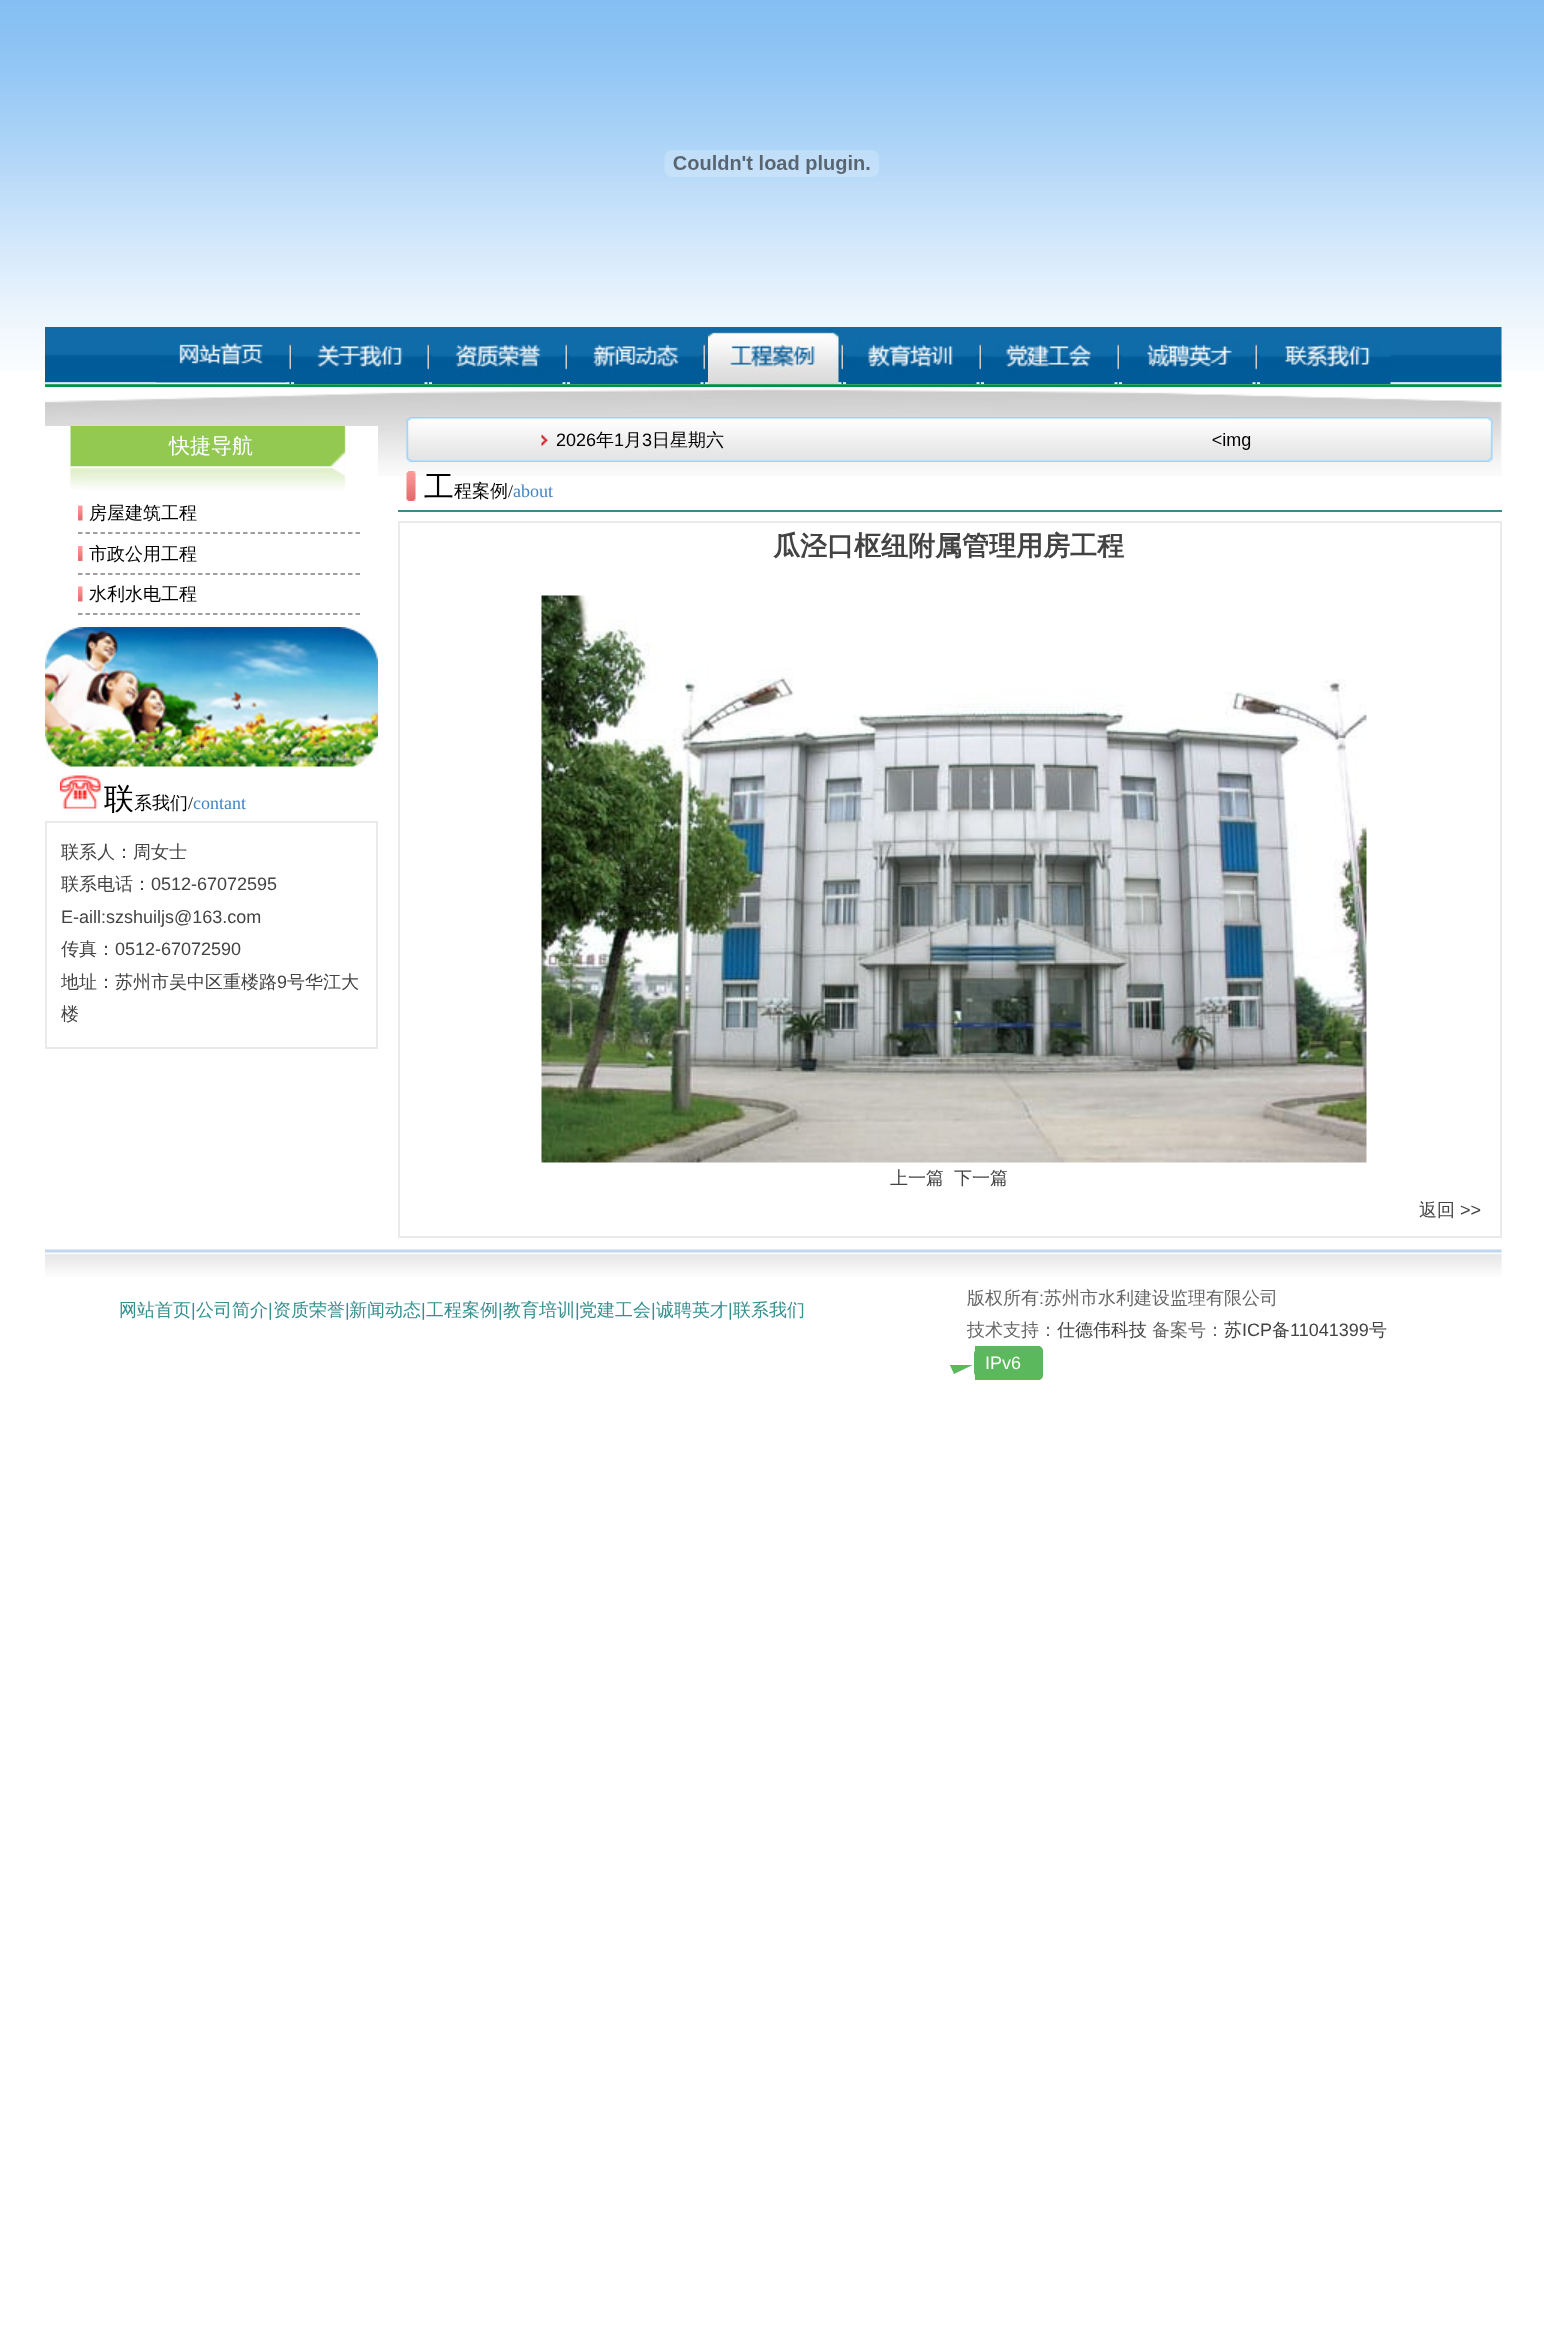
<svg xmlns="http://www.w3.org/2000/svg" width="1544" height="2344">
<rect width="100%" height="100%" fill="#fff"/>
<image x="0" y="0" width="1544" height="371" href="media/1.png"/>
<image x="664" y="150" width="215" height="27" href="media/2.png"/>
<image x="45" y="327" width="1457" height="56" href="media/3.png"/>
<image x="45" y="382" width="1457" height="5" href="media/14.png"/>
<image x="156" y="339" width="131" height="45" href="media/4.png"/>
<image x="289" y="344" width="2" height="40" href="media/5.png"/>
<image x="294" y="340" width="131" height="44" href="media/6.png"/>
<image x="427" y="344" width="2" height="40" href="media/5.png"/>
<image x="432" y="340" width="131" height="44" href="media/7.png"/>
<image x="565" y="344" width="2" height="40" href="media/5.png"/>
<image x="570" y="340" width="131" height="44" href="media/8.png"/>
<image x="703" y="344" width="2" height="40" href="media/5.png"/>
<image x="708" y="328" width="131" height="56" href="media/9.png"/>
<image x="841" y="344" width="2" height="40" href="media/5.png"/>
<image x="846" y="340" width="131" height="44" href="media/10.png"/>
<image x="979" y="344" width="2" height="40" href="media/5.png"/>
<image x="984" y="340" width="131" height="44" href="media/11.png"/>
<image x="1117" y="344" width="2" height="40" href="media/5.png"/>
<image x="1122" y="340" width="131" height="44" href="media/12.png"/>
<image x="1255" y="344" width="2" height="40" href="media/5.png"/>
<image x="1260" y="340" width="131" height="44" href="media/13.png"/>
<image x="45" y="388" width="1457" height="88" href="media/15.png"/>
<image x="45" y="426" width="333" height="41" href="media/16.png"/>
<text x="169" y="453" style="font-family:WenQuanYi Zen Hei;font-size:21px;font-weight:500;fill:#fff">快捷导航</text>
<image x="45" y="466" width="333" height="24" href="media/17.png"/>
<image x="78" y="505" width="5" height="16" href="media/18.png"/>
<path d="M78 533h282" fill="none" stroke="#808080" stroke-width="1.5" stroke-dasharray="4.5 3"/>
<text x="89" y="519" style="font-family:WenQuanYi Zen Hei;font-size:18px;font-weight:500;fill:#000">房屋建筑工程</text>
<image x="78" y="546" width="5" height="15" href="media/19.png"/>
<path d="M78 574h282" fill="none" stroke="#808080" stroke-width="1.5" stroke-dasharray="4.5 3"/>
<text x="89" y="560" style="font-family:WenQuanYi Zen Hei;font-size:18px;font-weight:500;fill:#000">市政公用工程</text>
<image x="78" y="586" width="5" height="16" href="media/18.png"/>
<path d="M78 614h282" fill="none" stroke="#808080" stroke-width="1.5" stroke-dasharray="4.5 3"/>
<text x="89" y="600" style="font-family:WenQuanYi Zen Hei;font-size:18px;font-weight:500;fill:#000">水利水电工程</text>
<image x="45" y="627" width="333" height="140" href="media/20.png"/>
<image x="60" y="775" width="41" height="34" href="media/21.png"/>
<text x="104" y="809" style="font-family:WenQuanYi Zen Hei;font-size:30px;font-weight:500;fill:#000">联</text>
<text x="134" y="809" style="font-family:WenQuanYi Zen Hei;font-size:18px;font-weight:500;fill:#000">系我们</text>
<text x="188" y="809" style="font-family:Liberation Serif;font-size:18px;fill:#000">/</text>
<text x="193" y="809" style="font-family:Liberation Serif;font-size:18px;fill:#4284c0">contant</text>
<rect x="46" y="822" width="331" height="226" fill="none" stroke="#eaeaea" stroke-width="2"/>
<text x="61" y="858" style="font-family:WenQuanYi Zen Hei;font-size:18px;font-weight:500;fill:#434343">联系人：周女士</text>
<text x="61" y="890" style="font-family:WenQuanYi Zen Hei;font-size:18px;font-weight:500;fill:#434343">联系电话：</text>
<text x="151" y="890" style="font-family:Liberation Sans;font-size:18px;fill:#434343">0512-67072595</text>
<text x="61" y="923" style="font-family:Liberation Sans;font-size:18px;fill:#434343">E-aill:szshuiljs@163.com</text>
<text x="61" y="955" style="font-family:WenQuanYi Zen Hei;font-size:18px;font-weight:500;fill:#434343">传真：</text>
<text x="115" y="955" style="font-family:Liberation Sans;font-size:18px;fill:#434343">0512-67072590</text>
<text x="61" y="988" style="font-family:WenQuanYi Zen Hei;font-size:18px;font-weight:500;fill:#434343">地址：苏州市吴中区重楼路</text>
<text x="277" y="988" style="font-family:Liberation Sans;font-size:18px;fill:#434343">9</text>
<text x="287" y="988" style="font-family:WenQuanYi Zen Hei;font-size:18px;font-weight:500;fill:#434343">号华江大</text>
<text x="61" y="1020" style="font-family:WenQuanYi Zen Hei;font-size:18px;font-weight:500;fill:#434343">楼</text>
<image x="406" y="417" width="1087" height="45" href="media/22.png"/>
<text x="556" y="446" style="font-family:Liberation Sans;font-size:18px;fill:#000">2026</text>
<text x="596" y="446" style="font-family:WenQuanYi Zen Hei;font-size:18px;font-weight:500;fill:#000">年</text>
<text x="614" y="446" style="font-family:Liberation Sans;font-size:18px;fill:#000">1</text>
<text x="624" y="446" style="font-family:WenQuanYi Zen Hei;font-size:18px;font-weight:500;fill:#000">月</text>
<text x="642" y="446" style="font-family:Liberation Sans;font-size:18px;fill:#000">3</text>
<text x="652" y="446" style="font-family:WenQuanYi Zen Hei;font-size:18px;font-weight:500;fill:#000">日星期六</text>
<image x="1212" y="433" width="39" height="17" href="media/23.png"/>
<rect x="398" y="510" width="1104" height="2" fill="#3c8b8b"/>
<image x="406" y="471" width="10" height="30" href="media/24.png"/>
<text x="424" y="497" style="font-family:WenQuanYi Zen Hei;font-size:30px;font-weight:500;fill:#000">工</text>
<text x="454" y="497" style="font-family:WenQuanYi Zen Hei;font-size:18px;font-weight:500;fill:#000">程案例</text>
<text x="508" y="497" style="font-family:Liberation Serif;font-size:18px;fill:#000">/</text>
<text x="513" y="497" style="font-family:Liberation Serif;font-size:18px;fill:#4284c0">about</text>
<rect x="399" y="522" width="1102" height="715" fill="none" stroke="#eaeaea" stroke-width="2"/>
<text x="773" y="555" style="font-family:WenQuanYi Zen Hei;font-size:27px;font-weight:bold;fill:#434343">瓜泾口枢纽附属管理用房工程</text>
<image x="541" y="595" width="826" height="568" href="media/25.png"/>
<text x="890" y="1184" style="font-family:WenQuanYi Zen Hei;font-size:18px;font-weight:500;fill:#434343">上一篇</text>
<text x="954" y="1184" style="font-family:WenQuanYi Zen Hei;font-size:18px;font-weight:500;fill:#434343">下一篇</text>
<text x="1419" y="1216" style="font-family:WenQuanYi Zen Hei;font-size:18px;font-weight:500;fill:#434343">返回</text>
<text x="1460" y="1216" style="font-family:Liberation Sans;font-size:18px;fill:#434343">&gt;&gt;</text>
<path d="M942 1348l52-24l12 25l-52 25z" fill="#5cb85c"/>
<image x="45" y="1249" width="1457" height="116" href="media/26.png"/>
<text x="119" y="1316" style="font-family:WenQuanYi Zen Hei;font-size:18px;font-weight:500;fill:#348f8f">网站首页</text>
<text x="191" y="1316" style="font-family:Liberation Sans;font-size:18px;fill:#348f8f">|</text>
<text x="196" y="1316" style="font-family:WenQuanYi Zen Hei;font-size:18px;font-weight:500;fill:#348f8f">公司简介</text>
<text x="268" y="1316" style="font-family:Liberation Sans;font-size:18px;fill:#348f8f">|</text>
<text x="273" y="1316" style="font-family:WenQuanYi Zen Hei;font-size:18px;font-weight:500;fill:#348f8f">资质荣誉</text>
<text x="345" y="1316" style="font-family:Liberation Sans;font-size:18px;fill:#348f8f">|</text>
<text x="349" y="1316" style="font-family:WenQuanYi Zen Hei;font-size:18px;font-weight:500;fill:#348f8f">新闻动态</text>
<text x="421" y="1316" style="font-family:Liberation Sans;font-size:18px;fill:#348f8f">|</text>
<text x="426" y="1316" style="font-family:WenQuanYi Zen Hei;font-size:18px;font-weight:500;fill:#348f8f">工程案例</text>
<text x="498" y="1316" style="font-family:Liberation Sans;font-size:18px;fill:#348f8f">|</text>
<text x="503" y="1316" style="font-family:WenQuanYi Zen Hei;font-size:18px;font-weight:500;fill:#348f8f">教育培训</text>
<text x="575" y="1316" style="font-family:Liberation Sans;font-size:18px;fill:#348f8f">|</text>
<text x="579" y="1316" style="font-family:WenQuanYi Zen Hei;font-size:18px;font-weight:500;fill:#348f8f">党建工会</text>
<text x="651" y="1316" style="font-family:Liberation Sans;font-size:18px;fill:#348f8f">|</text>
<text x="656" y="1316" style="font-family:WenQuanYi Zen Hei;font-size:18px;font-weight:500;fill:#348f8f">诚聘英才</text>
<text x="728" y="1316" style="font-family:Liberation Sans;font-size:18px;fill:#348f8f">|</text>
<text x="733" y="1316" style="font-family:WenQuanYi Zen Hei;font-size:18px;font-weight:500;fill:#348f8f">联系我们</text>
<text x="967" y="1304" style="font-family:WenQuanYi Zen Hei;font-size:18px;font-weight:500;fill:#666">版权所有</text>
<text x="1039" y="1304" style="font-family:Liberation Sans;font-size:18px;fill:#666">:</text>
<text x="1044" y="1304" style="font-family:WenQuanYi Zen Hei;font-size:18px;font-weight:500;fill:#666">苏州市水利建设监理有限公司</text>
<text x="967" y="1336" style="font-family:WenQuanYi Zen Hei;font-size:18px;font-weight:500;fill:#666">技术支持：</text>
<text x="1057" y="1336" style="font-family:WenQuanYi Zen Hei;font-size:18px;font-weight:500;fill:#434343">仕德伟科技</text>
<text x="1152" y="1336" style="font-family:WenQuanYi Zen Hei;font-size:18px;font-weight:500;fill:#666">备案号：</text>
<text x="1224" y="1336" style="font-family:WenQuanYi Zen Hei;font-size:18px;font-weight:500;fill:#434343">苏</text>
<text x="1242" y="1336" style="font-family:Liberation Sans;font-size:18px;fill:#434343">ICP</text>
<text x="1272" y="1336" style="font-family:WenQuanYi Zen Hei;font-size:18px;font-weight:500;fill:#434343">备</text>
<text x="1290" y="1336" style="font-family:Liberation Sans;font-size:18px;fill:#434343">11041399</text>
<text x="1369" y="1336" style="font-family:WenQuanYi Zen Hei;font-size:18px;font-weight:500;fill:#434343">号</text>
<path d="M979 1349h43v28h-43c-3 0-5-2-5-5v-18c0-3 2-5 5-5z" fill="#5cb85c"/>
<path d="M975 1346h63c3 0 5 2 5 5v24c0 3-2 5-5 5h-63z" fill="#5cb85c"/>
<text x="985" y="1369" style="font-family:Liberation Sans;font-size:18px;fill:#fff">IPv6</text>
</svg>
